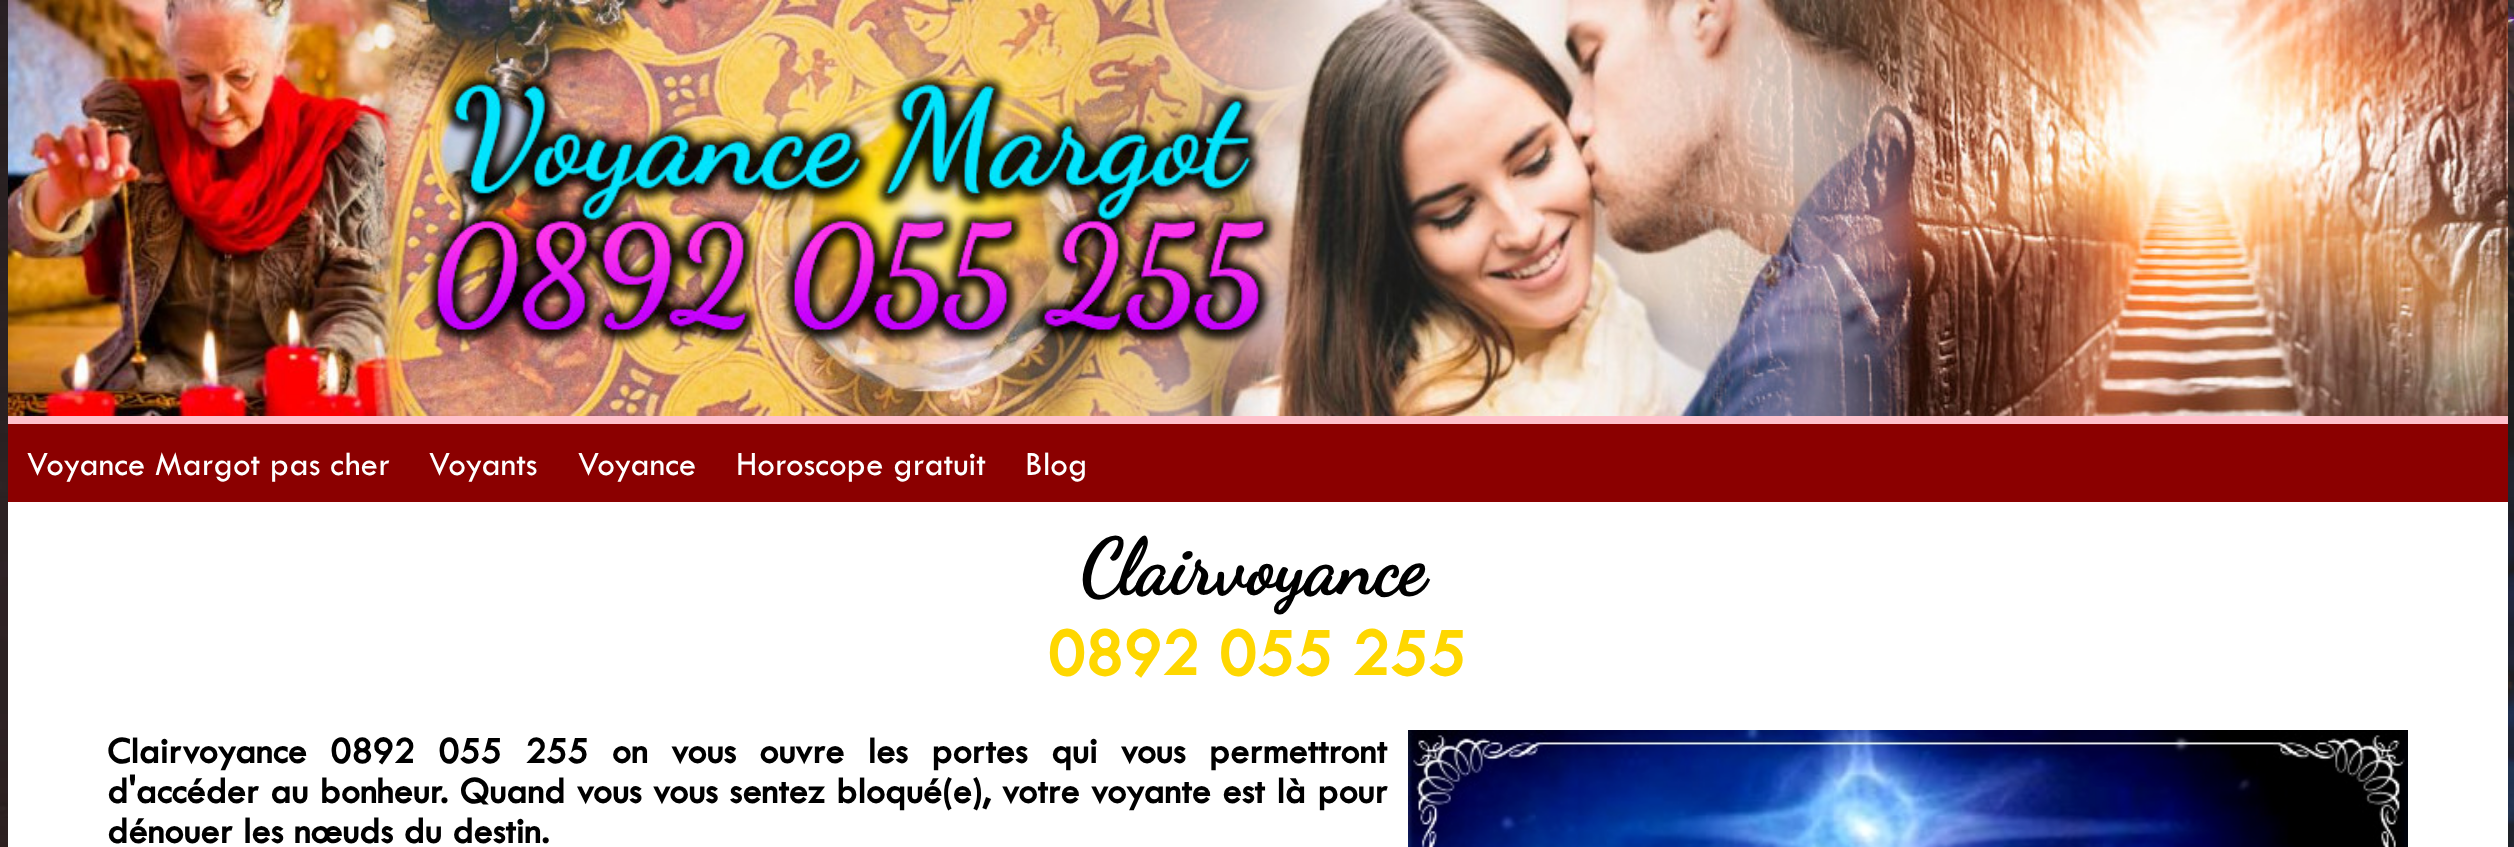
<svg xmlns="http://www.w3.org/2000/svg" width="2514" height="847">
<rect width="100%" height="100%" fill="#fff"/>
<image x="0" y="0" width="2514" height="847" href="media/1.png"/>
<rect x="8" y="416" width="2500" height="8" fill="#ffc0cb"/>
<image x="8" y="0" width="2500" height="416" href="media/2.png"/>
<rect x="8" y="424" width="2500" height="78" fill="#8b0000"/>
<text x="27" y="475" style="font-family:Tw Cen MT;font-size:35.25px;fill:#fff">Voyance Margot pas cher</text>
<text x="429" y="475" style="font-family:Tw Cen MT;font-size:35.25px;fill:#fff">Voyants</text>
<text x="578" y="475" style="font-family:Tw Cen MT;font-size:35.25px;fill:#fff">Voyance</text>
<text x="736" y="475" style="font-family:Tw Cen MT;font-size:35.25px;fill:#fff">Horoscope gratuit</text>
<text x="1025" y="475" style="font-family:Tw Cen MT;font-size:35.25px;fill:#fff">Blog</text>
<rect x="8" y="502" width="2500" height="345" fill="#fff"/>
<text x="1081" y="593" style="font-family:Dancing Script;font-size:77px;font-weight:bold;fill:#000">Clairvoyance</text>
<text x="1047" y="675" style="font-family:Tw Cen MT;font-size:69px;font-weight:bold;fill:#ffd700">0892 055 255</text>
<text x="107" y="763" word-spacing="12.75" style="font-family:Tw Cen MT;font-size:38.4px;font-weight:bold;fill:#000">Clairvoyance 0892 055 255 on vous ouvre les portes qui vous permettront</text>
<text x="107" y="803" word-spacing="0.9" style="font-family:Tw Cen MT;font-size:38.4px;font-weight:bold;fill:#000">d'accéder au bonheur. Quand vous vous sentez bloqué(e), votre voyante est là pour</text>
<text x="107" y="843" style="font-family:Tw Cen MT;font-size:38.4px;font-weight:bold;fill:#000">dénouer les nœuds du destin.</text>
<image x="1408" y="730" width="1000" height="117" href="media/3.png"/>
</svg>
